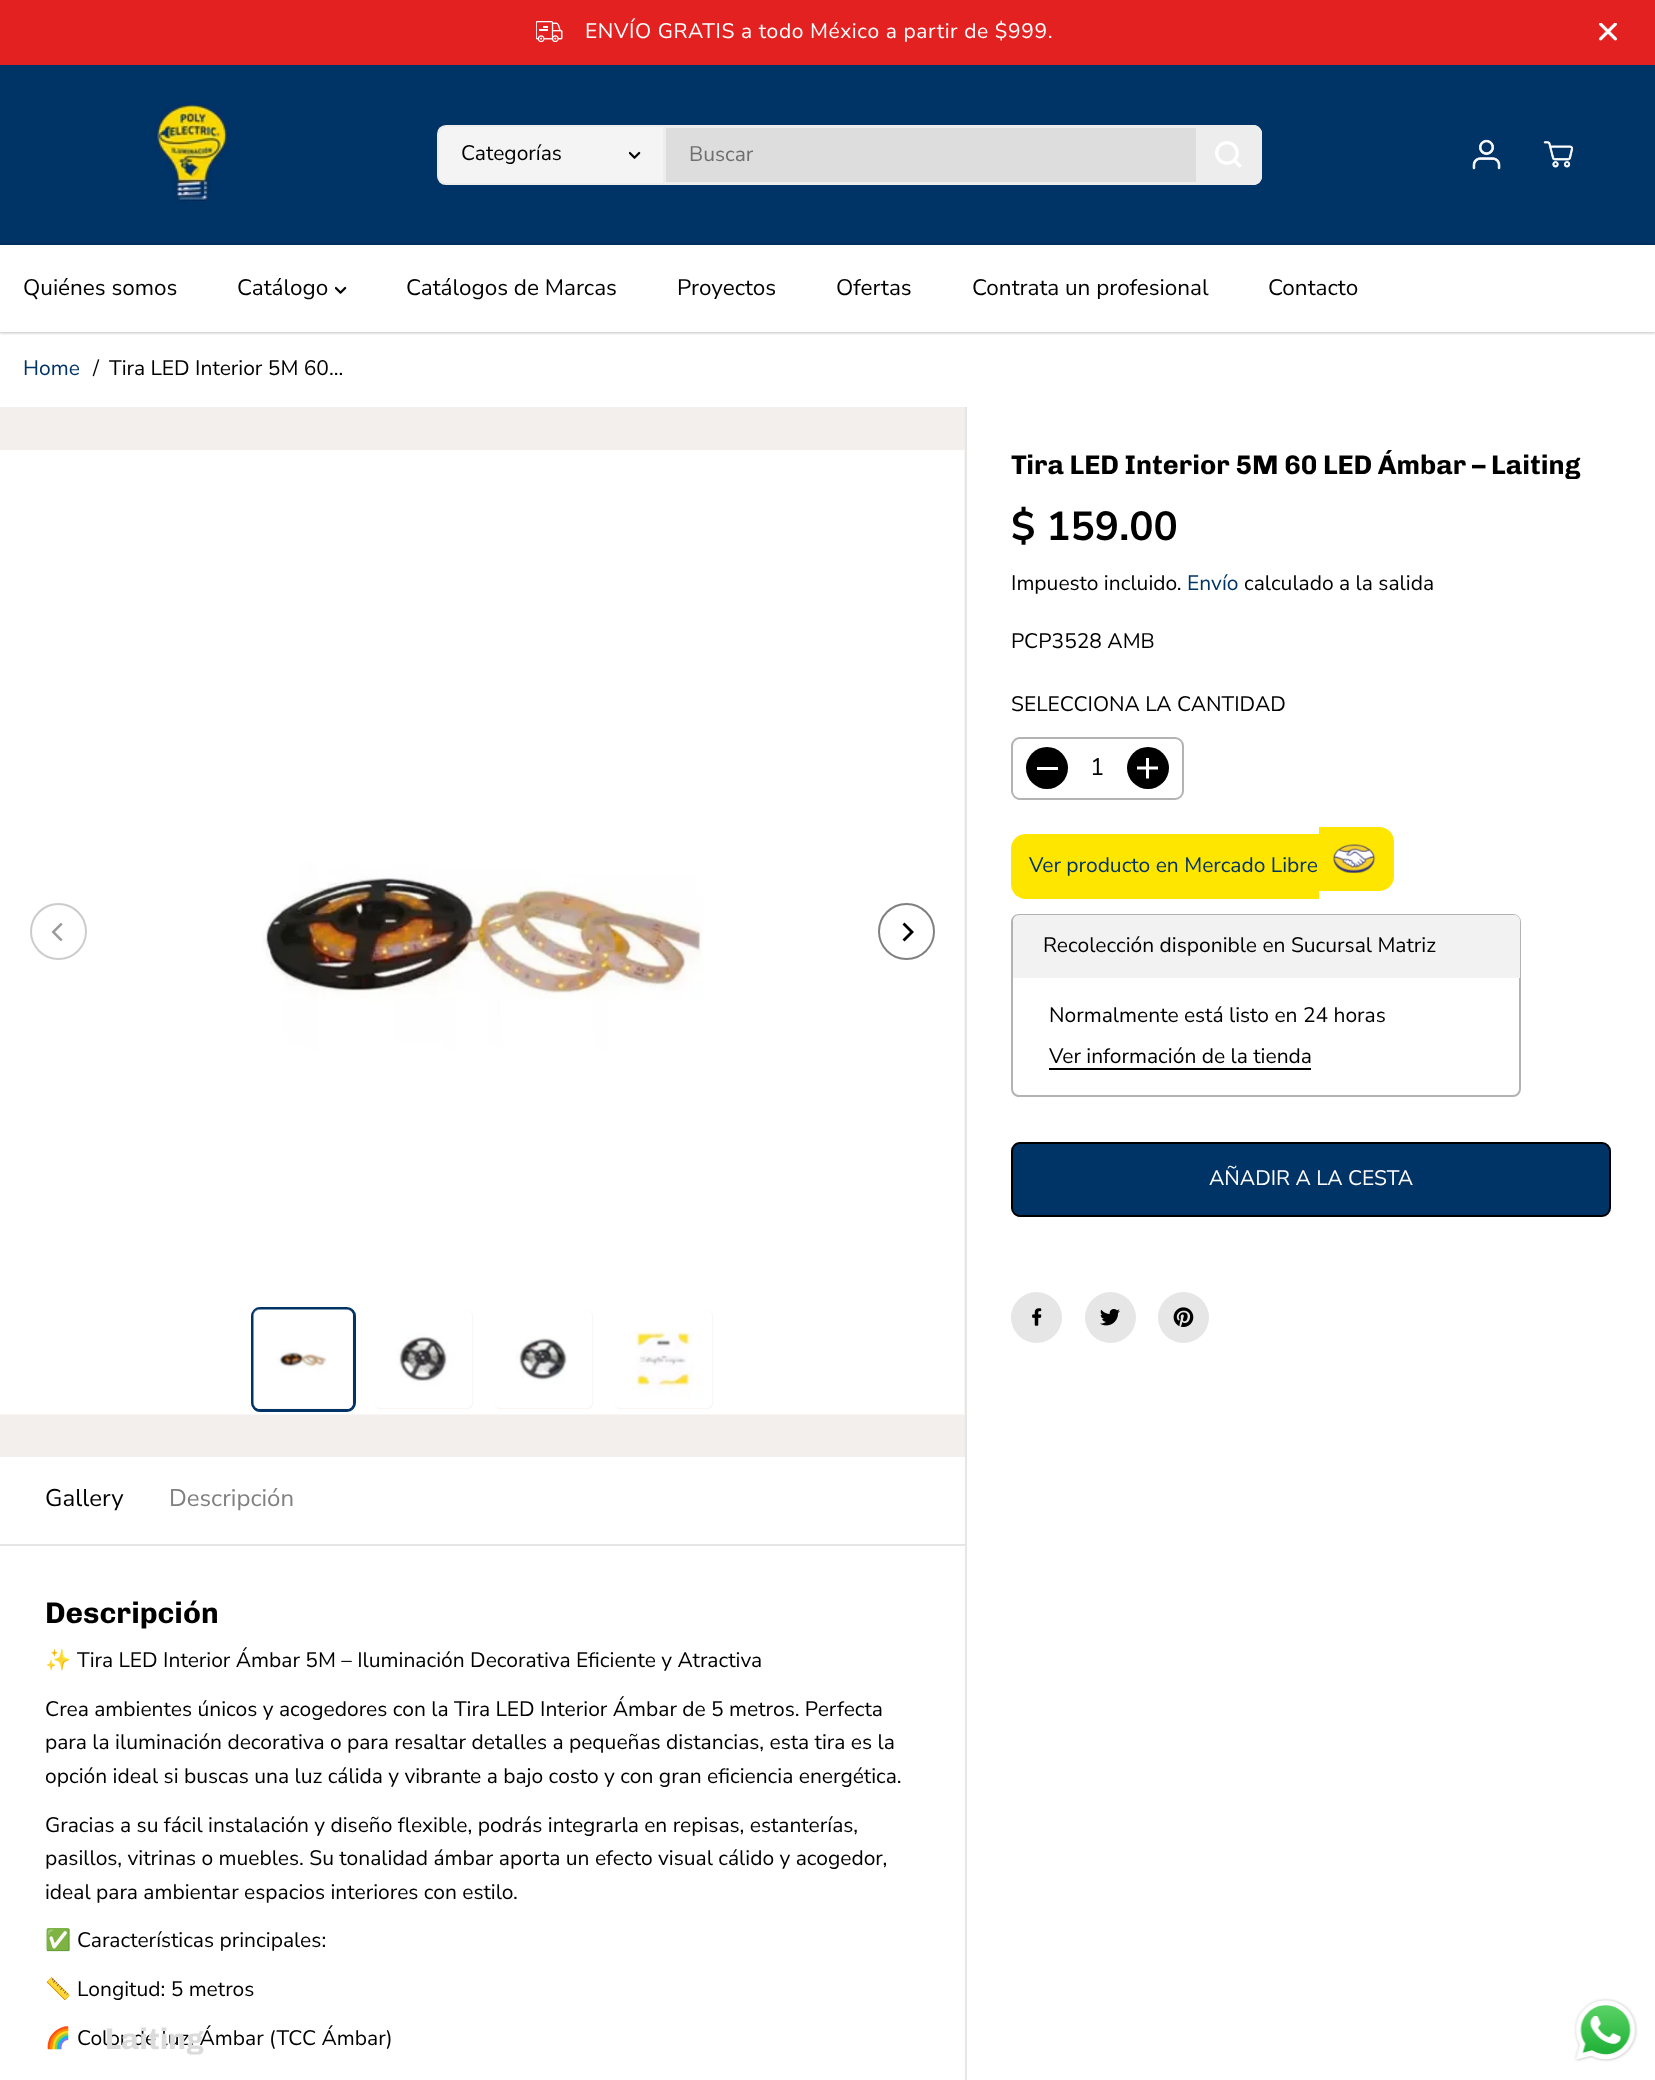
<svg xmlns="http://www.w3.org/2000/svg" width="1655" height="2080">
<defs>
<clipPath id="clip1"><rect x="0" y="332" width="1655" height="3"/></clipPath>
<clipPath id="clip2"><rect x="50" y="923" width="18" height="18"/></clipPath>
</defs>
<rect width="100%" height="100%" fill="#fff"/>
<rect y="65" width="1655" height="180" fill="#036"/>
<g clip-path="url(#clip1)">
<rect y="68" width="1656" height="267" fill="#0000000d" filter="blur(1.5px)"/>
</g>
<rect width="1655" height="65" fill="#e22120"/>
<image x="536" y="21" width="27" height="21" href="media/1.png"/>
<text x="585" y="38" style="font-family:Nunito Sans;font-size:21px;letter-spacing:0.6px;fill:#fff">ENVÍO GRATIS a todo México a partir de $999.</text>
<image x="1599" y="23" width="18" height="18" href="media/2.png"/>
<image x="155" y="102" width="74" height="102" href="media/3.png"/>
<path d="M446 126h218v58h-218c-4.5 0-8-3.5-8-8v-42c0-4.5 3.5-8 8-8z" fill="#f4f4f4" stroke="#ededed" stroke-width="2"/>
<text x="461" y="160" style="font-family:Nunito Sans;font-size:21px;fill:#000">Categorías</text>
<image x="629" y="151" width="12" height="8" href="media/4.png"/>
<path d="M663 125h590c5 0 9 4 9 9v42c0 5-4 9-9 9h-590z" fill="#ddd"/>
<path d="M663 125v60h590c5 0 9-4 9-9v-42c0-5-4-9-9-9zm3 3v54h593v-54z" fill="#ededed" fill-rule="evenodd"/>
<text x="689" y="161" style="font-family:Nunito Sans;font-size:21px;fill:#6f6f6f">Buscar</text>
<path d="M1196 125h57c5 0 9 4 9 9v42c0 5-4 9-9 9h-57z" fill="#ededed"/>
<image x="1215" y="141" width="27" height="27" href="media/5.png"/>
<image x="1472" y="139" width="29" height="31" href="media/6.png"/>
<image x="1543" y="141" width="31" height="27" href="media/7.png"/>
<rect x="-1" y="245" width="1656" height="87" fill="#0000004d" filter="blur(1.5px)"/>
<rect y="245" width="1655" height="87" fill="#fff"/>
<text x="23" y="295" style="font-family:Nunito Sans;font-size:22.5px;fill:#000">Quiénes somos</text>
<text x="237" y="295" style="font-family:Nunito Sans;font-size:22.5px;fill:#000">Catálogo</text>
<image x="335" y="286" width="12" height="8" href="media/8.png"/>
<text x="406" y="295" style="font-family:Nunito Sans;font-size:22.5px;fill:#000">Catálogos de Marcas</text>
<text x="677" y="295" style="font-family:Nunito Sans;font-size:22.5px;fill:#000">Proyectos</text>
<text x="836" y="295" style="font-family:Nunito Sans;font-size:22.5px;fill:#000">Ofertas</text>
<text x="972" y="295" style="font-family:Nunito Sans;font-size:22.5px;fill:#000">Contrata un profesional</text>
<text x="1268" y="295" style="font-family:Nunito Sans;font-size:22.5px;fill:#000">Contacto</text>
<text x="23" y="375" style="font-family:Nunito Sans;font-size:21px;fill:#036">Home</text>
<text x="93" y="375" style="font-family:Nunito Sans;font-size:21px;fill:#000">/</text>
<text x="109" y="375" style="font-family:Nunito Sans;font-size:21px;fill:#000">Tira LED Interior 5M 60...</text>
<text x="1011" y="474" style="font-family:Chivo;font-size:27px;font-weight:bold;fill:#000">Tira LED Interior 5M 60 LED Ámbar – Laiting</text>
<text x="1011" y="540" style="font-family:Nunito Sans;font-size:40.5px;font-weight:bold;fill:#000">$ 159.00</text>
<text x="1011" y="590" style="font-family:Nunito Sans;font-size:21px;fill:#000">Impuesto incluido.</text>
<text x="1187" y="590" style="font-family:Nunito Sans;font-size:21px;fill:#036">Envío</text>
<text x="1244" y="590" style="font-family:Nunito Sans;font-size:21px;fill:#000">calculado a la salida</text>
<text x="1011" y="648" style="font-family:Nunito Sans;font-size:21px;fill:#000">PCP3528 AMB</text>
<text x="1011" y="711" style="font-family:Nunito Sans;font-size:21px;fill:#000">SELECCIONA LA CANTIDAD</text>
<rect x="1012" y="738" width="171" height="61" rx="8" fill="none" stroke="#b3b3b3" stroke-width="2"/>
<circle cx="1047" cy="768" r="21" fill="#000"/>
<rect x="1037" y="767" width="21" height="3" fill="#fff"/>
<text x="1090" y="775" style="font-family:Nunito Sans;font-size:24px;fill:#000">1</text>
<circle cx="1148" cy="768" r="21" fill="#000"/>
<image x="1137" y="758" width="21" height="21" href="media/9.png"/>
<path d="M1026 834h293v65h-293c-8.5 0-15-6.5-15-15v-35c0-8.5 6.5-15 15-15z" fill="#ffe600"/>
<text x="1029" y="872" style="font-family:Nunito Sans;font-size:21px;fill:#036">Ver producto en Mercado Libre</text>
<path d="M1319 827h60c8.5 0 15 6.5 15 15v34c0 8.5-6.5 15-15 15h-60z" fill="#ffe600"/>
<image x="1333" y="844" width="43" height="29" href="media/10.png"/>
<rect x="1012" y="915" width="508" height="181" rx="7" fill="none" stroke="#b3b3b3" stroke-width="2"/>
<path d="M1019 915h495c3.5 0 6 2.5 6 6v57h-507v-57c0-3.5 2.5-6 6-6z" fill="#f2f2f2"/>
<text x="1043" y="952" style="font-family:Nunito Sans;font-size:21px;fill:#000">Recolección disponible en Sucursal Matriz</text>
<text x="1049" y="1022" style="font-family:Nunito Sans;font-size:21px;fill:#000">Normalmente está listo en 24 horas</text>
<text x="1049" y="1063" style="font-family:Nunito Sans;font-size:21px;fill:#000">Ver información de la tienda</text>
<rect x="1049" y="1068" width="262" height="2" fill="#000"/>
<rect x="1012" y="1143" width="598" height="73" rx="8" fill="#036" stroke="#000" stroke-width="2"/>
<text x="1209" y="1185" style="font-family:Nunito Sans;font-size:21px;fill:#fff">AÑADIR A LA CESTA</text>
<circle cx="1036.5" cy="1317.5" r="25.5" fill="#e6e6e6"/>
<image x="1032" y="1308" width="10" height="18" href="media/11.png"/>
<circle cx="1110.5" cy="1317.5" r="25.5" fill="#e6e6e6"/>
<image x="1100" y="1309" width="20" height="17" href="media/12.png"/>
<circle cx="1183.5" cy="1317.5" r="25.5" fill="#e6e6e6"/>
<image x="1173" y="1307" width="21" height="20" href="media/13.png"/>
<rect x="965" y="407" width="2" height="1673" fill="#e6e6e6"/>
<rect y="407" width="965" height="1050" fill="#f3efec"/>
<image x="0" y="450" width="965" height="965" href="media/14.png"/>
<circle cx="58.5" cy="931.5" r="27.5" fill="none" stroke="#ccc" stroke-width="2"/>
<g clip-path="url(#clip2)">
<path d="M51.5 932l9.5 9.5l1.5-2l-7.5-7.5l7.5-7.5l-1.5-2z" fill="#999"/>
</g>
<circle cx="906.5" cy="931.5" r="27.5" fill="none" stroke="#808080" stroke-width="2"/>
<path d="M914 932l-9.5-9.5l-2 2l7.5 7.5l-7.5 7.5l2 2z" fill="#000"/>
<rect x="252.5" y="1308.5" width="102" height="102" rx="7.5" fill="none" stroke="#036" stroke-width="3"/>
<rect x="254" y="1310" width="99" height="99" rx="6" fill="#f3efec"/>
<image x="253" y="1309" width="100" height="100" href="media/15.png"/>
<rect x="374" y="1310" width="99" height="99" rx="6" fill="#f3efec"/>
<image x="374" y="1310" width="99" height="99" href="media/16.png"/>
<rect x="494" y="1310" width="99" height="99" rx="6" fill="#f3efec"/>
<image x="494" y="1310" width="99" height="99" href="media/17.png"/>
<rect x="614" y="1310" width="99" height="99" rx="6" fill="#f3efec"/>
<image x="614" y="1310" width="99" height="99" href="media/18.png"/>
<rect y="1544" width="965" height="2" fill="#e6e6e6"/>
<text x="45" y="1506" style="font-family:Nunito Sans;font-size:24px;fill:#000">Gallery</text>
<text x="169" y="1506" style="font-family:Nunito Sans;font-size:24px;fill:#808080">Descripción</text>
<text x="45" y="1623" style="font-family:Chivo;font-size:29.75px;font-weight:bold;fill:#000">Descripción</text>
<text x="45" y="1667" style="font-family:Noto Color Emoji;font-size:21px;fill:#000">✨</text>
<text x="77" y="1667" style="font-family:Nunito Sans;font-size:21px;fill:#000">Tira LED Interior Ámbar 5M – Iluminación Decorativa Eficiente y Atractiva</text>
<text x="45" y="1716" style="font-family:Nunito Sans;font-size:21px;fill:#000">Crea ambientes únicos y acogedores con la Tira LED Interior Ámbar de 5 metros. Perfecta</text>
<text x="45" y="1749" style="font-family:Nunito Sans;font-size:21px;fill:#000">para la iluminación decorativa o para resaltar detalles a pequeñas distancias, esta tira es la</text>
<text x="45" y="1783" style="font-family:Nunito Sans;font-size:21px;fill:#000">opción ideal si buscas una luz cálida y vibrante a bajo costo y con gran eficiencia energética.</text>
<text x="45" y="1832" style="font-family:Nunito Sans;font-size:21px;fill:#000">Gracias a su fácil instalación y diseño flexible, podrás integrarla en repisas, estanterías,</text>
<text x="45" y="1865" style="font-family:Nunito Sans;font-size:21px;fill:#000">pasillos, vitrinas o muebles. Su tonalidad ámbar aporta un efecto visual cálido y acogedor,</text>
<text x="45" y="1899" style="font-family:Nunito Sans;font-size:21px;fill:#000">ideal para ambientar espacios interiores con estilo.</text>
<text x="45" y="1947" style="font-family:Noto Color Emoji;font-size:21px;fill:#000">✅</text>
<text x="77" y="1947" style="font-family:Nunito Sans;font-size:21px;fill:#000">Características principales:</text>
<text x="45" y="1996" style="font-family:Noto Color Emoji;font-size:21px;fill:#000">📏</text>
<text x="77" y="1996" style="font-family:Nunito Sans;font-size:21px;fill:#000">Longitud: 5 metros</text>
<text x="45" y="2045" style="font-family:Noto Color Emoji;font-size:21px;fill:#000">🌈</text>
<text x="77" y="2045" style="font-family:Nunito Sans;font-size:21px;fill:#000">Color de luz: Ámbar (TCC Ámbar)</text>
<text x="105" y="2049" style="font-family:Chivo;font-size:29.75px;font-weight:bold;fill:#dbdbdb">Laiting</text>
<image x="1574" y="1998" width="64" height="64" href="media/19.png"/>
</svg>
